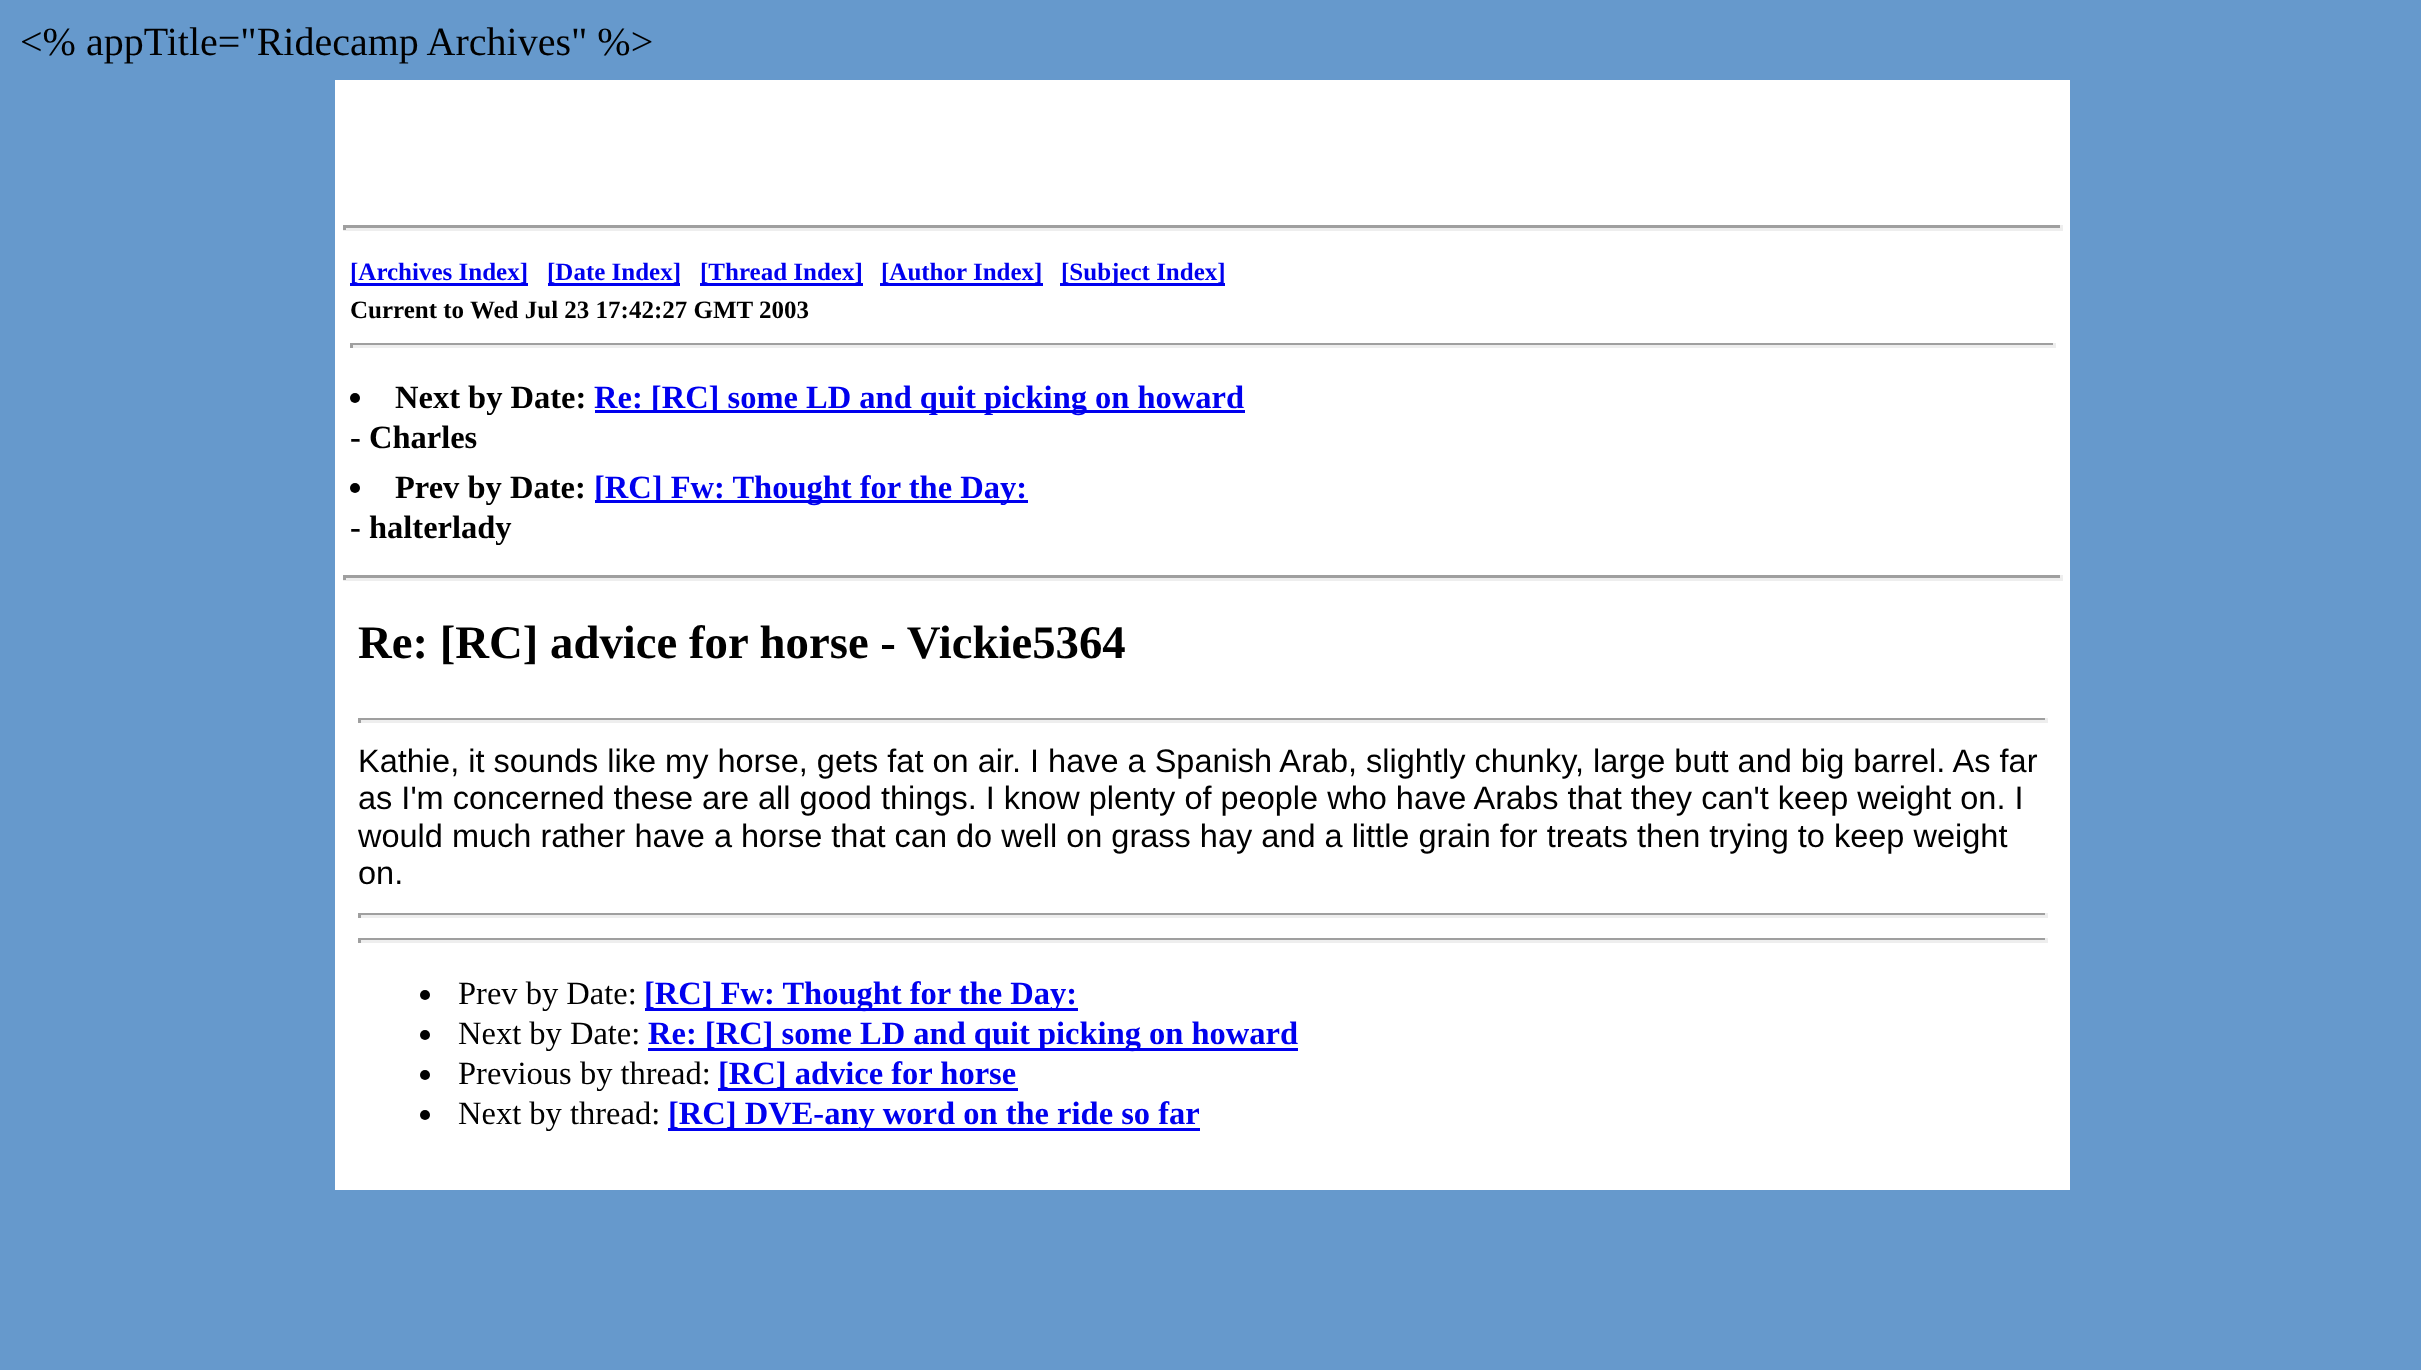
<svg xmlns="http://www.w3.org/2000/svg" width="2421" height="1370">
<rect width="100%" height="100%" fill="#69c"/>
<text x="20" y="55" style="font-family:Liberation Serif;font-size:40px;fill:#000">&lt;% appTitle="Ridecamp Archives" %&gt;</text>
<rect x="335" y="80" width="1735" height="1110" fill="#fff"/>
<rect x="343" y="225" width="1720" height="3" fill="#9f9f9f"/>
<rect x="2060" y="225" width="3" height="5" fill="#eee"/>
<rect x="343" y="228" width="1720" height="3" fill="#eee"/>
<rect x="343" y="225" width="3" height="5" fill="#9f9f9f"/>
<rect x="350" y="283" width="178" height="3" fill="#00e"/>
<text x="350" y="280" style="font-family:Liberation Serif;font-size:25px;font-weight:bold;fill:#00e">[Archives Index]</text>
<rect x="548" y="283" width="132" height="3" fill="#00e"/>
<text x="547" y="280" style="font-family:Liberation Serif;font-size:25px;font-weight:bold;fill:#00e">[Date Index]</text>
<rect x="700" y="283" width="163" height="3" fill="#00e"/>
<text x="700" y="280" style="font-family:Liberation Serif;font-size:25px;font-weight:bold;fill:#00e">[Thread Index]</text>
<rect x="880" y="283" width="163" height="3" fill="#00e"/>
<text x="881" y="280" style="font-family:Liberation Serif;font-size:25px;font-weight:bold;fill:#00e">[Author Index]</text>
<rect x="1060" y="283" width="165" height="3" fill="#00e"/>
<text x="1061" y="280" style="font-family:Liberation Serif;font-size:25px;font-weight:bold;fill:#00e">[Subject Index]</text>
<text x="350" y="318" style="font-family:Liberation Serif;font-size:25px;font-weight:bold;fill:#000">Current to Wed Jul 23 17:42:27 GMT 2003</text>
<rect x="350" y="343" width="1705" height="2" fill="#9f9f9f"/>
<rect x="2053" y="343" width="3" height="5" fill="#eee"/>
<rect x="350" y="345" width="1705" height="3" fill="#eee"/>
<rect x="350" y="343" width="3" height="5" fill="#9f9f9f"/>
<circle cx="355" cy="398" r="5" fill="#000"/>
<text x="395" y="408" style="font-family:Liberation Serif;font-size:32.5px;font-weight:bold;fill:#000">Next by Date:</text>
<rect x="595" y="410" width="650" height="3" fill="#00e"/>
<text x="594" y="408" style="font-family:Liberation Serif;font-size:32.5px;font-weight:bold;fill:#00e">Re: [RC] some LD and quit picking on howard</text>
<text x="350" y="448" style="font-family:Liberation Serif;font-size:32.5px;font-weight:bold;fill:#000">- Charles</text>
<circle cx="355" cy="488" r="5" fill="#000"/>
<text x="395" y="498" style="font-family:Liberation Serif;font-size:32.5px;font-weight:bold;fill:#000">Prev by Date:</text>
<rect x="595" y="500" width="433" height="3" fill="#00e"/>
<text x="594" y="498" style="font-family:Liberation Serif;font-size:32.5px;font-weight:bold;fill:#00e">[RC] Fw: Thought for the Day:</text>
<text x="350" y="538" style="font-family:Liberation Serif;font-size:32.5px;font-weight:bold;fill:#000">- halterlady</text>
<rect x="343" y="575" width="1720" height="3" fill="#9f9f9f"/>
<rect x="2060" y="575" width="3" height="5" fill="#eee"/>
<rect x="343" y="578" width="1720" height="3" fill="#eee"/>
<rect x="343" y="575" width="3" height="5" fill="#9f9f9f"/>
<text x="358" y="658" style="font-family:Liberation Serif;font-size:46.75px;font-weight:bold;fill:#000">Re: [RC] advice for horse - Vickie5364</text>
<rect x="358" y="718" width="1690" height="2" fill="#9f9f9f"/>
<rect x="2045" y="718" width="3" height="5" fill="#eee"/>
<rect x="358" y="720" width="1690" height="3" fill="#eee"/>
<rect x="358" y="718" width="3" height="5" fill="#9f9f9f"/>
<text x="358" y="772" style="font-family:Liberation Sans;font-size:32.5px;fill:#000">Kathie, it sounds like my horse, gets fat on air. I have a Spanish Arab, slightly chunky, large butt and big barrel. As far</text>
<text x="358" y="809" style="font-family:Liberation Sans;font-size:32.5px;fill:#000">as I'm concerned these are all good things. I know plenty of people who have Arabs that they can't keep weight on. I</text>
<text x="358" y="847" style="font-family:Liberation Sans;font-size:32.5px;fill:#000">would much rather have a horse that can do well on grass hay and a little grain for treats then trying to keep weight</text>
<text x="358" y="884" style="font-family:Liberation Sans;font-size:32.5px;fill:#000">on.</text>
<rect x="358" y="913" width="1690" height="2" fill="#9f9f9f"/>
<rect x="2045" y="913" width="3" height="5" fill="#eee"/>
<rect x="358" y="915" width="1690" height="3" fill="#eee"/>
<rect x="358" y="913" width="3" height="5" fill="#9f9f9f"/>
<rect x="358" y="938" width="1690" height="2" fill="#9f9f9f"/>
<rect x="2045" y="938" width="3" height="5" fill="#eee"/>
<rect x="358" y="940" width="1690" height="3" fill="#eee"/>
<rect x="358" y="938" width="3" height="5" fill="#9f9f9f"/>
<circle cx="425" cy="995" r="5" fill="#000"/>
<text x="458" y="1004" style="font-family:Liberation Serif;font-size:32.5px;fill:#000">Prev by Date:</text>
<rect x="645" y="1008" width="433" height="3" fill="#00e"/>
<text x="644" y="1004" style="font-family:Liberation Serif;font-size:32.5px;font-weight:bold;fill:#00e">[RC] Fw: Thought for the Day:</text>
<circle cx="425" cy="1035" r="5" fill="#000"/>
<text x="458" y="1044" style="font-family:Liberation Serif;font-size:32.5px;fill:#000">Next by Date:</text>
<rect x="648" y="1048" width="650" height="3" fill="#00e"/>
<text x="648" y="1044" style="font-family:Liberation Serif;font-size:32.5px;font-weight:bold;fill:#00e">Re: [RC] some LD and quit picking on howard</text>
<circle cx="425" cy="1075" r="5" fill="#000"/>
<text x="458" y="1084" style="font-family:Liberation Serif;font-size:32.5px;fill:#000">Previous by thread:</text>
<rect x="718" y="1088" width="300" height="3" fill="#00e"/>
<text x="718" y="1084" style="font-family:Liberation Serif;font-size:32.5px;font-weight:bold;fill:#00e">[RC] advice for horse</text>
<circle cx="425" cy="1115" r="5" fill="#000"/>
<text x="458" y="1124" style="font-family:Liberation Serif;font-size:32.5px;fill:#000">Next by thread:</text>
<rect x="668" y="1128" width="532" height="3" fill="#00e"/>
<text x="668" y="1124" style="font-family:Liberation Serif;font-size:32.5px;font-weight:bold;fill:#00e">[RC] DVE-any word on the ride so far</text>
</svg>
